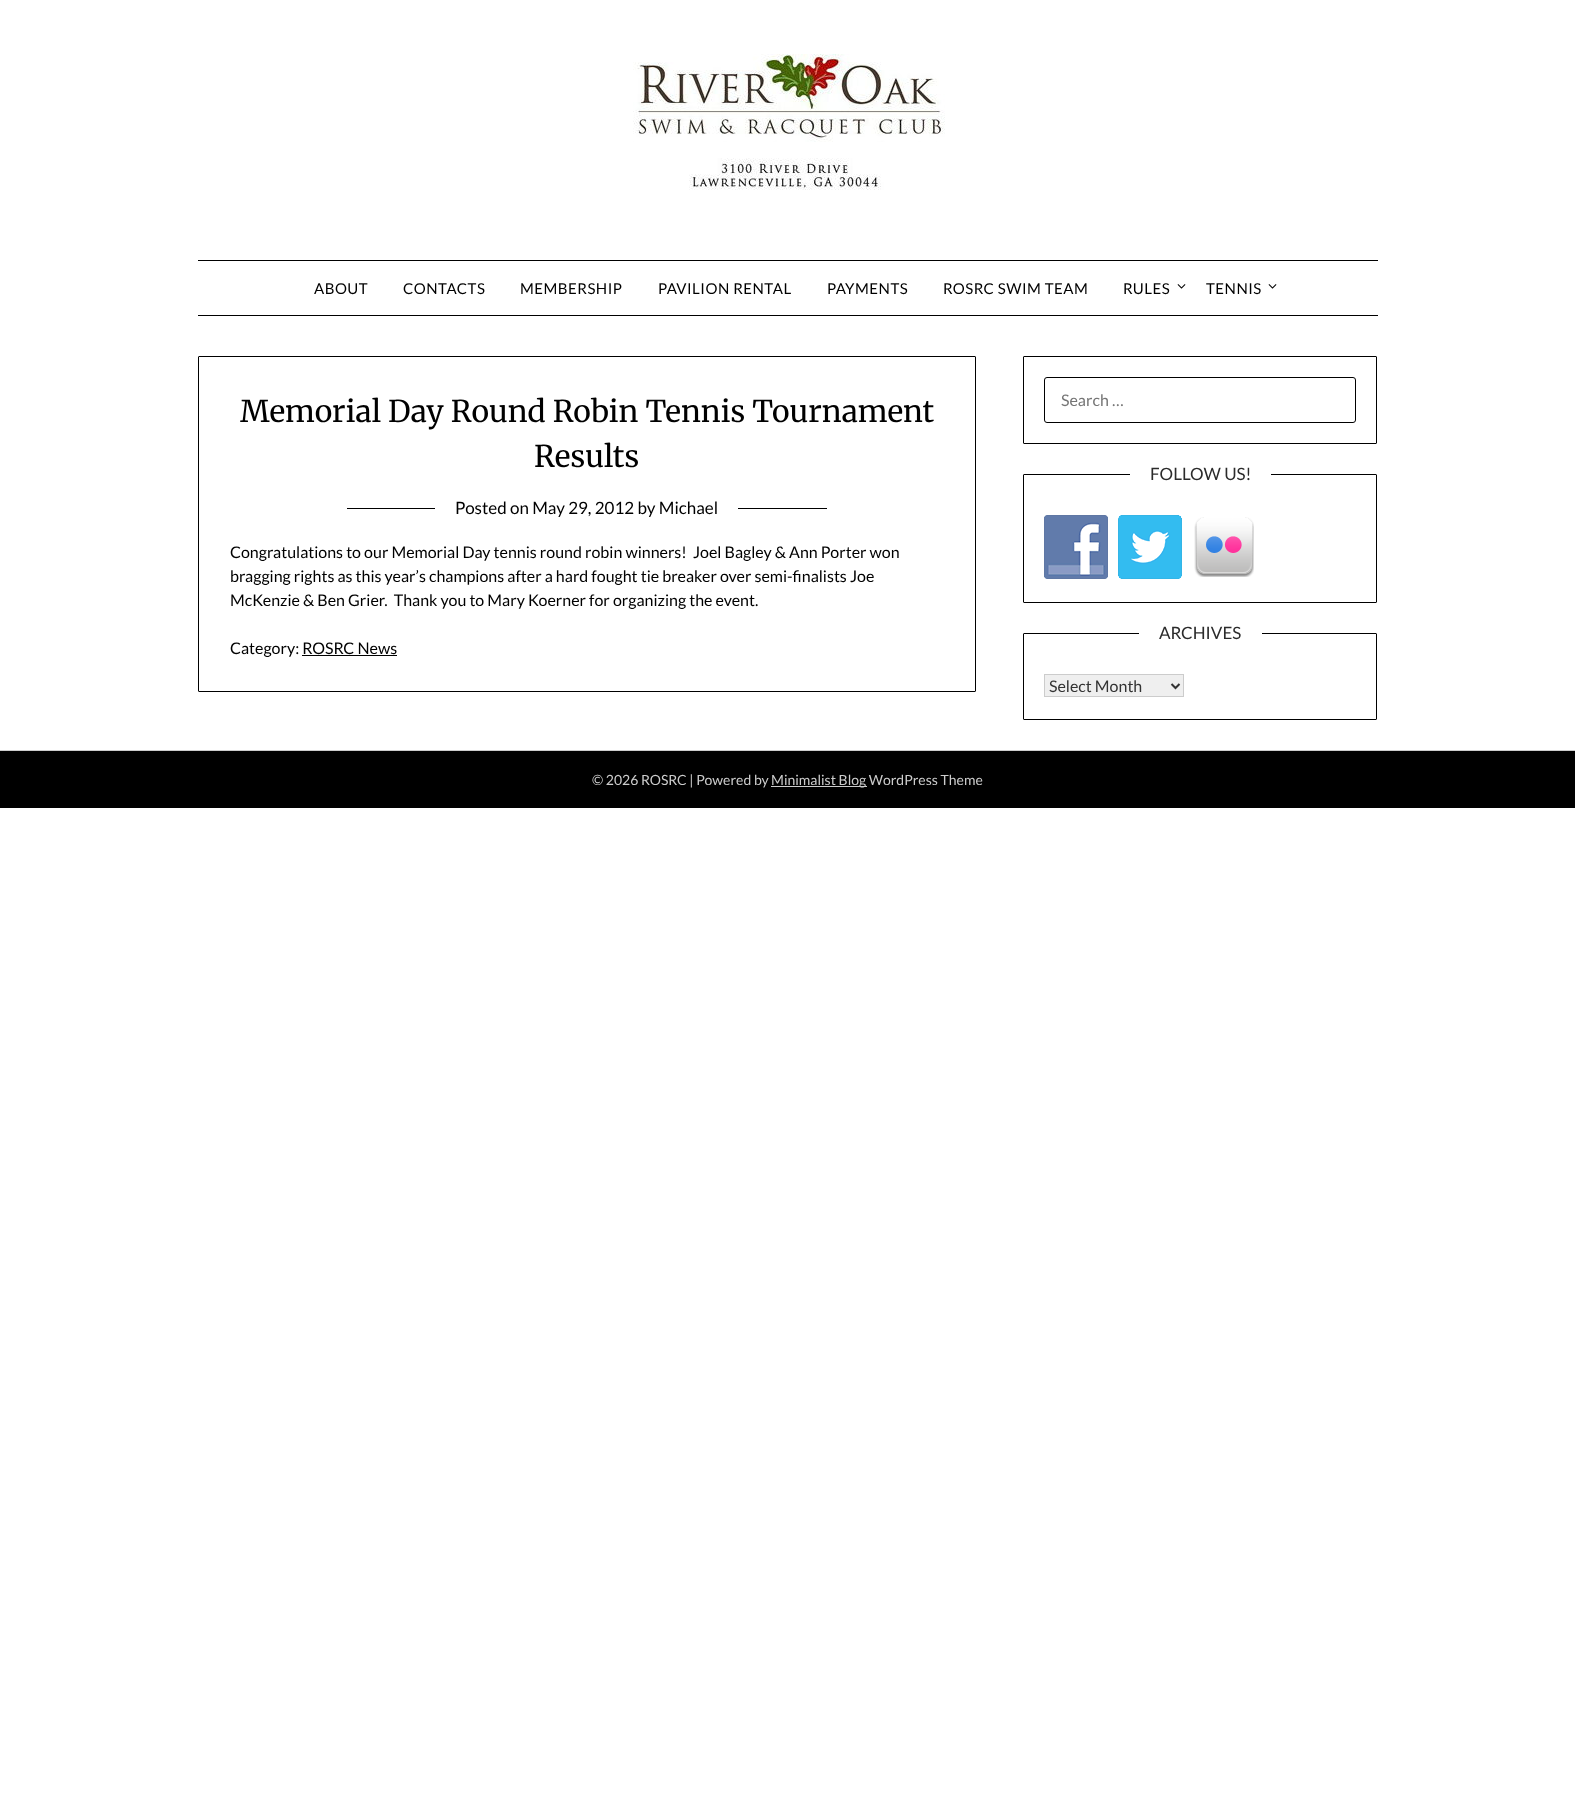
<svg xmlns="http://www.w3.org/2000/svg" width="1575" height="1817">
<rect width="100%" height="100%" fill="#fff"/>
<image x="633" y="54" width="312" height="136" href="media/1.png"/>
<rect x="198" y="260" width="1180" height="1" fill="#000"/>
<rect x="198" y="315" width="1180" height="1" fill="#000"/>
<text x="314" y="294" style="font-family:Lato;font-size:15px;letter-spacing:0.5px;fill:#000">ABOUT</text>
<text x="403" y="294" style="font-family:Lato;font-size:15px;letter-spacing:0.5px;fill:#000">CONTACTS</text>
<text x="520" y="294" style="font-family:Lato;font-size:15px;letter-spacing:0.5px;fill:#000">MEMBERSHIP</text>
<text x="658" y="294" style="font-family:Lato;font-size:15px;letter-spacing:0.5px;fill:#000">PAVILION RENTAL</text>
<text x="827" y="294" style="font-family:Lato;font-size:15px;letter-spacing:0.5px;fill:#000">PAYMENTS</text>
<text x="943" y="294" style="font-family:Lato;font-size:15px;letter-spacing:0.5px;fill:#000">ROSRC SWIM TEAM</text>
<text x="1123" y="294" style="font-family:Lato;font-size:15px;letter-spacing:0.5px;fill:#000">RULES</text>
<image x="1177" y="284" width="9" height="5" href="media/2.png"/>
<text x="1206" y="294" style="font-family:Lato;font-size:15px;letter-spacing:0.5px;fill:#000">TENNIS</text>
<image x="1268" y="284" width="9" height="5" href="media/2.png"/>
<rect x="198.5" y="356.5" width="777" height="335" rx="0.5" fill="none" stroke="#000"/>
<text x="240" y="422" style="font-family:Merriweather;font-size:30px;fill:#000">Memorial Day Round Robin Tennis Tournament</text>
<text x="534" y="467" style="font-family:Merriweather;font-size:30px;fill:#000">Results</text>
<rect x="347" y="508" width="480" height="1" fill="#000"/>
<rect x="435" y="508" width="303" height="1" fill="#fff"/>
<text x="455" y="514" style="font-family:Lato;font-size:17px;fill:#000">Posted on May 29, 2012 by Michael</text>
<text x="230" y="558" style="font-family:Lato;font-size:16px;fill:#000" xml:space="preserve">Congratulations to our Memorial Day tennis round robin winners!  Joel Bagley &amp; Ann Porter won</text>
<text x="230" y="582" style="font-family:Lato;font-size:16px;fill:#000">bragging rights as this year’s champions after a hard fought tie breaker over semi-finalists Joe</text>
<text x="230" y="606" style="font-family:Lato;font-size:16px;fill:#000" xml:space="preserve">McKenzie &amp; Ben Grier.  Thank you to Mary Koerner for organizing the event.</text>
<text x="230" y="654" style="font-family:Lato;font-size:16px;fill:#000">Category: ROSRC News</text>
<rect x="302" y="655" width="95" height="1" fill="#000"/>
<rect x="1023.5" y="356.5" width="353" height="87" rx="0.5" fill="none" stroke="#000"/>
<rect x="1044.5" y="377.5" width="311" height="45" rx="2.5" fill="none" stroke="#000"/>
<text x="1061" y="406" style="font-family:Lato;font-size:16px;fill:#757575">Search …</text>
<rect x="1023.5" y="474.5" width="353" height="128" rx="0.5" fill="none" stroke="#000"/>
<rect x="1130" y="474" width="141" height="1" fill="#fff"/>
<text x="1150" y="480" style="font-family:Lato;font-size:17px;fill:#2b2b2b">FOLLOW US!</text>
<image x="1044" y="515" width="64" height="64" href="media/3.png"/>
<image x="1118" y="515" width="64" height="64" href="media/4.png"/>
<image x="1194" y="517" width="60" height="60" href="media/5.png"/>
<rect x="1023.5" y="633.5" width="353" height="86" rx="0.5" fill="none" stroke="#000"/>
<rect x="1139" y="633" width="123" height="1" fill="#fff"/>
<text x="1159" y="639" style="font-family:Lato;font-size:17px;fill:#2b2b2b">ARCHIVES</text>
<rect x="1044.5" y="674.5" width="139" height="22" fill="#efefef" stroke="#ccc"/>
<path d="M1171.5 684l4 4l4-4" fill="none" stroke="#333" stroke-width="2"/>
<text x="1049" y="692" style="font-family:Lato;font-size:16px;fill:#333">Select Month</text>
<rect y="751" width="1575" height="57" fill="#000"/>
<rect y="750" width="1575" height="1" fill="#ccc"/>
<text x="592" y="785" style="font-family:Lato;font-size:14px;fill:#ccc">© 2026 ROSRC | Powered by</text>
<rect x="771" y="786" width="96" height="1" fill="#ccc"/>
<text x="771" y="785" style="font-family:Lato;font-size:14px;fill:#ccc">Minimalist Blog WordPress Theme</text>
</svg>
